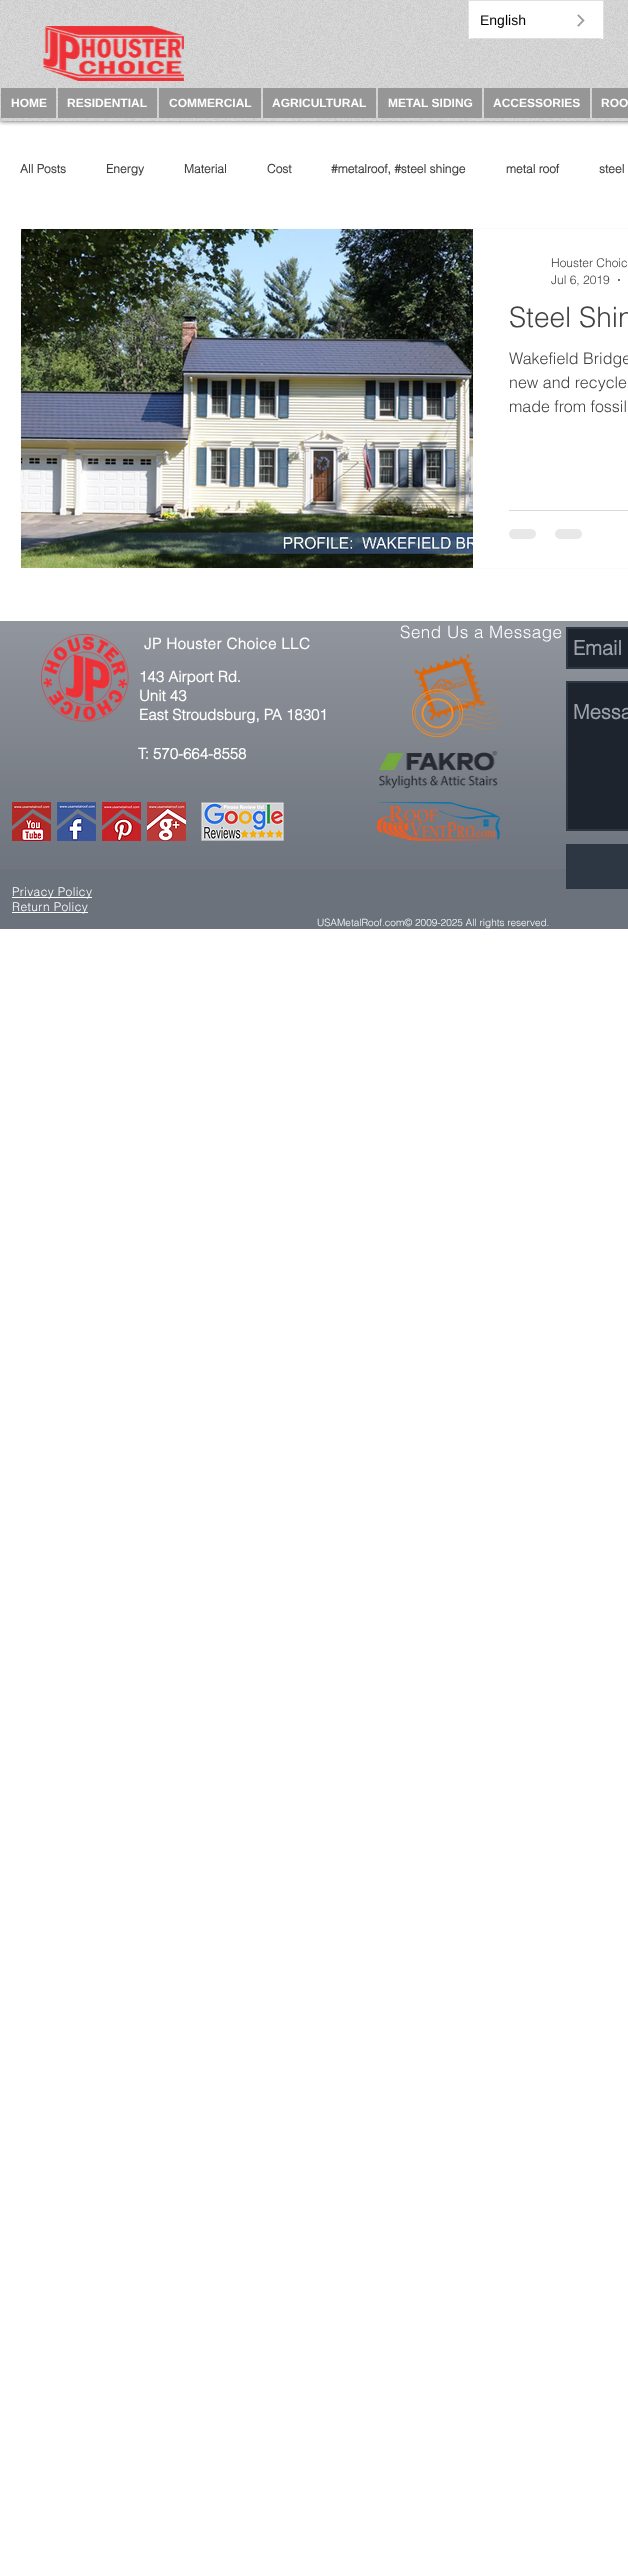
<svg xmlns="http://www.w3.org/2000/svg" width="628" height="2554">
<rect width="100%" height="100%" fill="#fff"/>
<rect width="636" height="121" fill="#000000b3" filter="blur(2.5px)"/>
<rect width="628" height="121" fill="#d9d9d9"/>
<image x="0" y="0" width="628" height="121" href="media/2.png"/>
<rect x="470" y="1" width="133" height="38" fill="#fff"/>
<rect x="468" width="136" height="1" fill="#e0e0e0"/>
<rect x="603" width="1" height="39" fill="#e0e0e0"/>
<rect x="468" width="1" height="39" fill="#e0e0e0"/>
<rect x="469" y="38" width="132" height="1" fill="#e0e0e0"/>
<rect x="469" y="1" width="1" height="38" fill="#fff"/>
<text x="480" y="25" style="font-family:Liberation Sans;font-size:14px;fill:#000">English</text>
<image x="577" y="14" width="8" height="13" href="media/1.png"/>
<image x="43" y="26" width="141" height="55" href="media/3.png"/>
<rect x="1" y="88" width="55" height="30" fill="#969696"/>
<text x="11" y="107" style="font-family:Liberation Sans;font-size:12px;font-weight:bold;fill:#fff">HOME</text>
<rect x="58" y="88" width="99" height="30" fill="#969696"/>
<text x="67" y="107" style="font-family:Liberation Sans;font-size:12px;font-weight:bold;fill:#fff">RESIDENTIAL</text>
<rect x="159" y="88" width="102" height="30" fill="#969696"/>
<text x="169" y="107" style="font-family:Liberation Sans;font-size:12px;font-weight:bold;fill:#fff">COMMERCIAL</text>
<rect x="263" y="88" width="113" height="30" fill="#969696"/>
<text x="272" y="107" style="font-family:Liberation Sans;font-size:12px;font-weight:bold;fill:#fff">AGRICULTURAL</text>
<rect x="378" y="88" width="104" height="30" fill="#969696"/>
<text x="388" y="107" style="font-family:Liberation Sans;font-size:12px;font-weight:bold;fill:#fff">METAL SIDING</text>
<rect x="484" y="88" width="106" height="30" fill="#969696"/>
<text x="493" y="107" style="font-family:Liberation Sans;font-size:12px;font-weight:bold;fill:#fff">ACCESSORIES</text>
<rect x="592" y="88" width="36" height="30" fill="#969696"/>
<text x="601" y="107" style="font-family:Liberation Sans;font-size:12px;font-weight:bold;fill:#fff">ROO</text>
<text x="20" y="173" style="font-family:helvetica;font-size:12px;font-weight:bold;fill:#414141">All Posts</text>
<text x="106" y="173" style="font-family:helvetica;font-size:12px;font-weight:bold;fill:#414141">Energy</text>
<text x="184" y="173" style="font-family:helvetica;font-size:12px;font-weight:bold;fill:#414141">Material</text>
<text x="267" y="173" style="font-family:helvetica;font-size:12px;font-weight:bold;fill:#414141">Cost</text>
<text x="331" y="173" style="font-family:helvetica;font-size:12px;font-weight:bold;fill:#414141">#metalroof, #steel shinge</text>
<text x="506" y="173" style="font-family:helvetica;font-size:12px;font-weight:bold;fill:#414141">metal roof</text>
<text x="599" y="173" style="font-family:helvetica;font-size:12px;font-weight:bold;fill:#414141">steel</text>
<rect x="20.5" y="228.5" width="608" height="340" fill="none" stroke="#fbfbfb"/>
<image x="21" y="229" width="452" height="339" href="media/4.png"/>
<text x="551" y="267" style="font-family:helvetica;font-size:12px;font-weight:300;fill:#414141">Houster Choic</text>
<text x="551" y="284" style="font-family:helvetica;font-size:12px;font-weight:300;fill:#414141">Jul 6, 2019</text>
<circle cx="619" cy="280" r="1" fill="#414141"/>
<text x="509" y="327" style="font-family:helvetica;font-size:28px;font-weight:300;fill:#414141">Steel Shin</text>
<text x="509" y="364" style="font-family:helvetica;font-size:16px;font-weight:300;fill:#414141">Wakefield Bridge</text>
<text x="509" y="388" style="font-family:helvetica;font-size:16px;font-weight:300;fill:#414141">new and recycle</text>
<text x="509" y="412" style="font-family:helvetica;font-size:16px;font-weight:300;fill:#414141">made from fossil</text>
<rect x="509" y="510" width="119" height="1" fill="#d9d9d9"/>
<rect x="509" y="529" width="27" height="10" rx="5" fill="#e8e8e8"/>
<rect x="555" y="529" width="27" height="10" rx="5" fill="#e8e8e8"/>
<rect y="621" width="628" height="308" fill="#6c727c"/>
<image x="0" y="621" width="628" height="248" href="media/5.png"/>
<image x="41" y="634" width="88" height="88" href="media/6.png"/>
<text x="144" y="649" style="font-family:helvetica;font-size:15px;font-weight:bold;letter-spacing:0.45px;fill:#fff">JP Houster Choice LLC</text>
<text x="400" y="638" style="font-family:helvetica;font-size:17px;font-weight:300;letter-spacing:0.5px;fill:#fff">Send Us a Message</text>
<rect x="567" y="628" width="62" height="40" fill="#1e242e" stroke="#2d3643" stroke-width="2"/>
<text x="573" y="655" style="font-family:helvetica;font-size:20px;font-weight:bold;fill:#9ca2ab">Email</text>
<rect x="567" y="682" width="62" height="148" fill="#1e242e" stroke="#2d3643" stroke-width="2"/>
<text x="573" y="719" style="font-family:helvetica;font-size:20px;font-weight:bold;fill:#9ca2ab">Messa</text>
<rect x="566" y="844" width="62" height="45" fill="#2d3643"/>
<text x="139" y="682" style="font-family:helvetica;font-size:15px;font-weight:bold;fill:#fff">143 Airport Rd.</text>
<text x="139" y="701" style="font-family:helvetica;font-size:15px;font-weight:bold;fill:#fff">Unit 43</text>
<text x="139" y="720" style="font-family:helvetica;font-size:15px;font-weight:bold;fill:#fff">East Stroudsburg, PA 18301</text>
<image x="412" y="654" width="88" height="83" href="media/7.png"/>
<text x="138" y="759" style="font-family:helvetica;font-size:15px;font-weight:bold;fill:#fff">T: 570-664-8558</text>
<image x="379" y="751" width="119" height="38" href="media/8.png"/>
<image x="12" y="802" width="39" height="39" href="media/9.png"/>
<image x="57" y="802" width="39" height="39" href="media/10.png"/>
<image x="102" y="802" width="39" height="39" href="media/11.png"/>
<image x="147" y="802" width="39" height="39" href="media/12.png"/>
<image x="201" y="802" width="83" height="39" href="media/13.png"/>
<image x="377" y="802" width="123" height="39" href="media/14.png"/>
<rect x="12" y="897" width="80" height="1" fill="#fff"/>
<text x="12" y="896" style="font-family:helvetica;font-size:12px;font-weight:300;letter-spacing:0.4px;fill:#fff">Privacy Policy</text>
<rect x="12" y="912" width="76" height="1" fill="#fff"/>
<text x="12" y="911" style="font-family:helvetica;font-size:12px;font-weight:300;letter-spacing:0.4px;fill:#fff">Return Policy</text>
<text x="317" y="926" style="font-family:helvetica;font-size:10px;font-weight:300;fill:#fff">USAMetalRoof.com© 2009-2025 All rights reserved.</text>
</svg>
